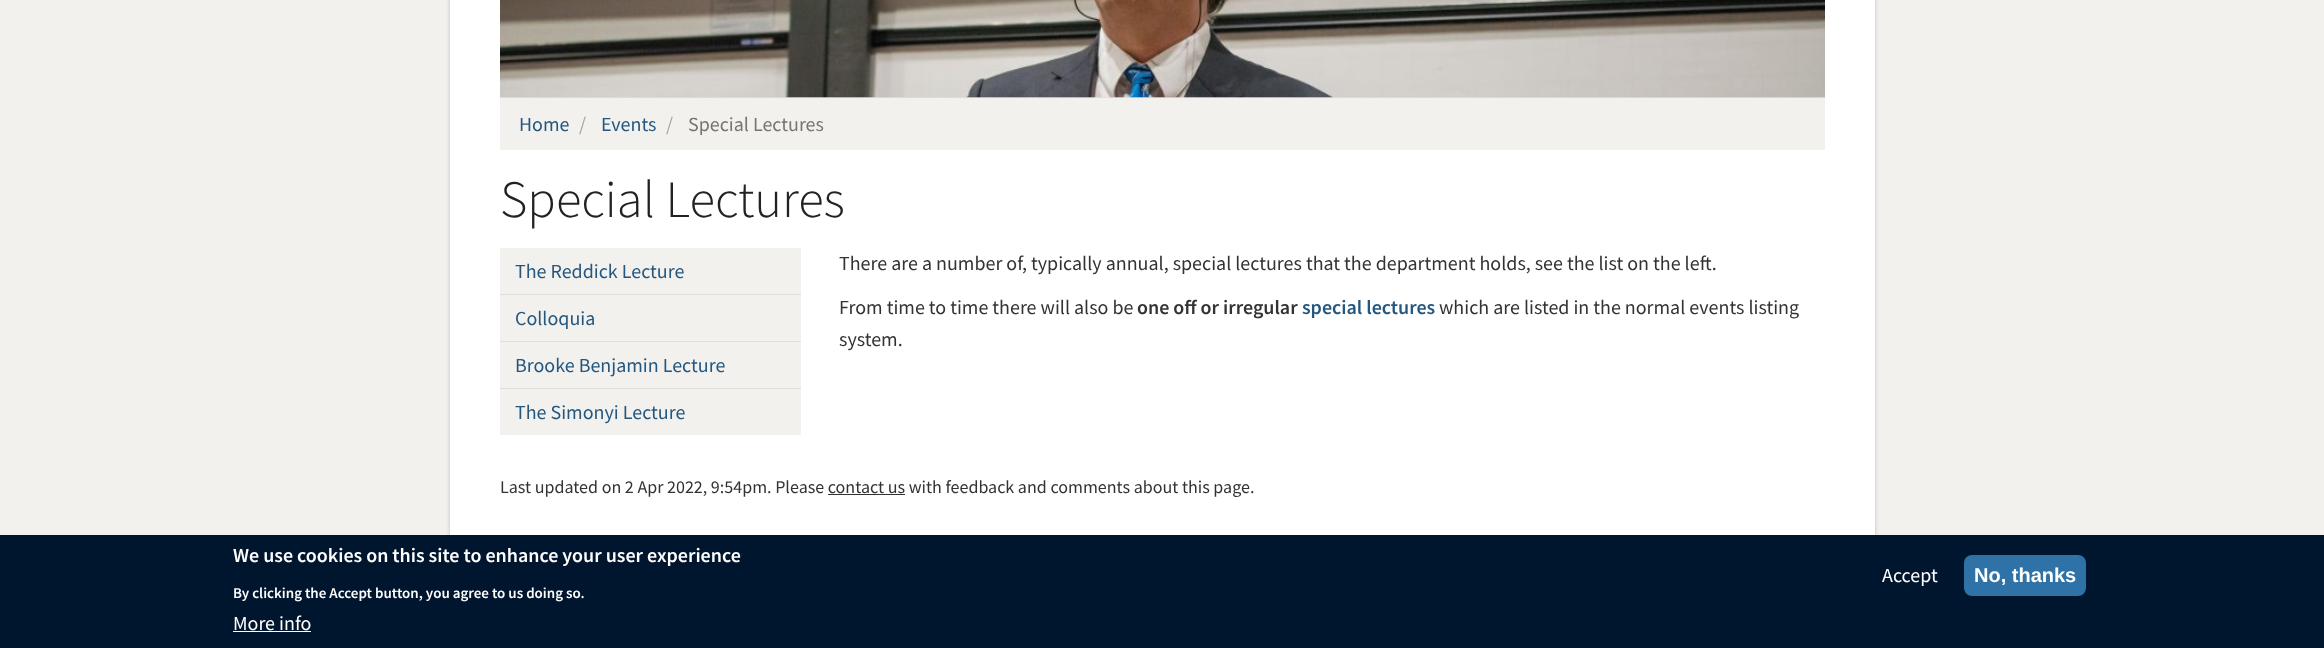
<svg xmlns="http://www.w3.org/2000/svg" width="2324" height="648">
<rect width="100%" height="100%" fill="#f3f1ee"/>
<rect x="450" y="-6" width="1425" height="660" fill="#00000033" filter="blur(2px)"/>
<rect x="450" width="1425" height="535" fill="#fff"/>
<rect x="500" y="97" width="1325" height="1" fill="#e0ded9"/>
<image x="500" y="0" width="1325" height="98" href="media/1.png"/>
<rect x="500" y="98" width="1325" height="52" fill="#f3f1ee"/>
<text x="519" y="131" style="font-family:Source Sans Pro;font-size:20px;fill:#245780">Home</text>
<text x="579" y="131" style="font-family:Source Sans Pro;font-size:20px;fill:#a6a6a6">/</text>
<text x="601" y="131" style="font-family:Source Sans Pro;font-size:20px;fill:#245780">Events</text>
<text x="666" y="131" style="font-family:Source Sans Pro;font-size:20px;fill:#a6a6a6">/</text>
<text x="688" y="131" style="font-family:Source Sans Pro;font-size:20px;fill:#7a736e">Special Lectures</text>
<text x="500" y="217" style="font-family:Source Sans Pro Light;font-size:52.5px;font-weight:300;fill:#222">Special Lectures</text>
<rect x="500" y="248" width="301" height="187" fill="#f3f1ee"/>
<text x="515" y="278" style="font-family:Source Sans Pro;font-size:20px;fill:#245780">The Reddick Lecture</text>
<rect x="500" y="294" width="301" height="1" fill="#e0ded9"/>
<text x="515" y="325" style="font-family:Source Sans Pro;font-size:20px;fill:#245780">Colloquia</text>
<rect x="500" y="341" width="301" height="1" fill="#e0ded9"/>
<text x="515" y="372" style="font-family:Source Sans Pro;font-size:20px;fill:#245780">Brooke Benjamin Lecture</text>
<rect x="500" y="388" width="301" height="1" fill="#e0ded9"/>
<text x="515" y="419" style="font-family:Source Sans Pro;font-size:20px;fill:#245780">The Simonyi Lecture</text>
<text x="839" y="270" style="font-family:Source Sans Pro;font-size:20px;fill:#333">There are a number of, typically annual, special lectures that the department holds, see the list on the left.</text>
<text x="839" y="314" style="font-family:Source Sans Pro;font-size:20px;fill:#333">From time to time there will also be</text>
<text x="1137" y="314" style="font-family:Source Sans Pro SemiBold;font-size:20px;font-weight:600;fill:#333">one off or irregular</text>
<text x="1302" y="314" style="font-family:Source Sans Pro SemiBold;font-size:20px;font-weight:600;fill:#245780">special lectures</text>
<text x="1439" y="314" style="font-family:Source Sans Pro;font-size:20px;fill:#333">which are listed in the normal events listing</text>
<text x="839" y="346" style="font-family:Source Sans Pro;font-size:20px;fill:#333">system.</text>
<text x="500" y="493" style="font-family:Source Sans Pro;font-size:18px;fill:#333">Last updated on 2 Apr 2022, 9:54pm. Please contact us with feedback and comments about this page.</text>
<rect x="828" y="494" width="77" height="1" fill="#333"/>
<rect y="535" width="2324" height="113" fill="#00152e"/>
<text x="233" y="562" style="font-family:Source Sans Pro SemiBold;font-size:20px;font-weight:600;fill:#fff">We use cookies on this site to enhance your user experience</text>
<text x="233" y="598" style="font-family:Source Sans Pro SemiBold;font-size:15px;font-weight:600;fill:#fff">By clicking the Accept button, you agree to us doing so.</text>
<text x="233" y="630" style="font-family:Source Sans Pro;font-size:20px;fill:#fff">More info</text>
<rect x="233" y="631" width="78" height="1" fill="#fff"/>
<text x="1882" y="582" style="font-family:Source Sans Pro;font-size:20px;fill:#fff">Accept</text>
<rect x="1964" y="555" width="122" height="41" rx="8" fill="#2f72a8"/>
<text x="1974" y="582" style="font-family:Liberation Sans;font-size:20px;font-weight:bold;fill:#fff">No, thanks</text>
</svg>
